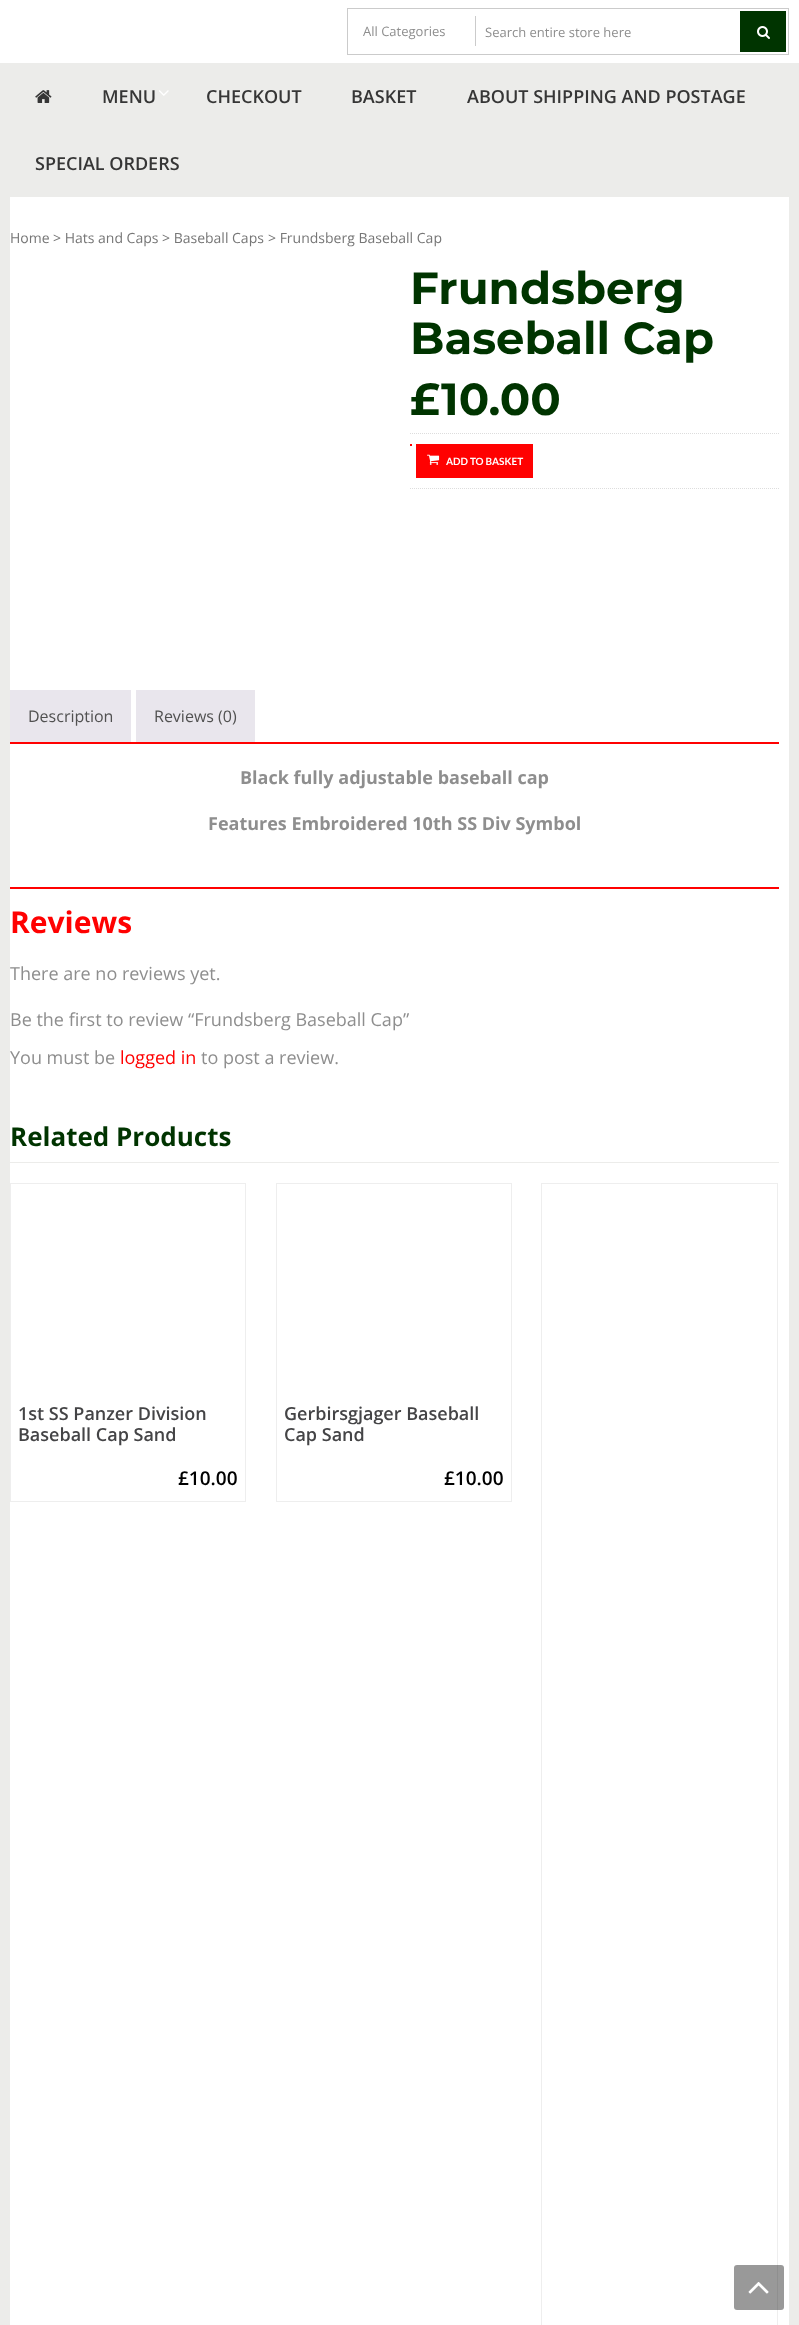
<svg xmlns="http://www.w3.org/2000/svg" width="799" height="2325">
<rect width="100%" height="100%" fill="#fff"/>
<rect x="347.5" y="8.5" width="441" height="46" fill="none" stroke="#cbcbcb"/>
<text x="363" y="36" style="font-family:Open Sans;font-size:13px;fill:#8e8e8e">All Categories</text>
<rect x="475" y="16" width="1" height="30" fill="#cbcbcb"/>
<text x="485" y="37" style="font-family:Open Sans;font-size:13px;fill:#8e8e8e">Search entire store here</text>
<rect x="740" y="11" width="46" height="41" fill="#003400"/>
<image x="757" y="26" width="13" height="13" href="media/1.png"/>
<rect y="63" width="799" height="2262" fill="#ececea"/>
<image x="35" y="90" width="17" height="13" href="media/2.png"/>
<text x="102" y="103" style="font-family:Open Sans;font-size:18px;font-weight:600;fill:#363636">MENU</text>
<image x="159" y="90" width="10" height="6" href="media/3.png"/>
<text x="206" y="103" style="font-family:Open Sans;font-size:18px;font-weight:600;fill:#363636">CHECKOUT</text>
<text x="351" y="103" style="font-family:Open Sans;font-size:18px;font-weight:600;fill:#363636">BASKET</text>
<text x="467" y="103" style="font-family:Open Sans;font-size:18px;font-weight:600;fill:#363636">ABOUT SHIPPING AND POSTAGE</text>
<text x="35" y="170" style="font-family:Open Sans;font-size:18px;font-weight:600;fill:#363636">SPECIAL ORDERS</text>
<rect x="10" y="197" width="779" height="2128" fill="#fff"/>
<text x="10" y="243" style="font-family:Open Sans;font-size:14px;fill:#767676">Home</text>
<text x="53" y="243" style="font-family:Open Sans;font-size:14px;fill:#767676">&gt; Hats and Caps</text>
<text x="162" y="243" style="font-family:Open Sans;font-size:14px;fill:#767676">&gt; Baseball Caps</text>
<text x="268" y="243" style="font-family:Open Sans;font-size:14px;fill:#767676">&gt; Frundsberg Baseball Cap</text>
<text x="410" y="304" style="font-family:Montserrat;font-size:45px;font-weight:bold;fill:#003400">Frundsberg</text>
<text x="410" y="354" style="font-family:Montserrat;font-size:45px;font-weight:bold;fill:#003400">Baseball Cap</text>
<text x="410" y="415" style="font-family:Montserrat;font-size:45px;font-weight:bold;fill:#003400">£</text>
<text x="441" y="415" style="font-family:Montserrat;font-size:45px;font-weight:bold;fill:#003400">10.00</text>
<path d="M410 433.5h369" fill="none" stroke="#ddd" stroke-dasharray="1 1"/>
<path d="M410 488.5h369" fill="none" stroke="#ddd" stroke-dasharray="1 1"/>
<rect x="410" y="444" width="2" height="2" fill="#ff0101"/>
<rect x="416" y="444" width="117" height="34" fill="#ff0101"/>
<image x="427" y="454" width="13" height="11" href="media/4.png"/>
<text x="446" y="465" style="font-family:Lato;font-size:10px;font-weight:bold;fill:#fff">ADD TO BASKET</text>
<rect x="10" y="690" width="121" height="52" fill="#e9e6ed"/>
<text x="28" y="722" style="font-family:Open Sans;font-size:16px;fill:#515151">Description</text>
<rect x="136" y="690" width="119" height="52" fill="#e9e6ed"/>
<text x="154" y="722" style="font-family:Open Sans;font-size:16px;fill:#515151">Reviews (0)</text>
<rect x="10" y="742" width="769" height="2" fill="#ff0101"/>
<text x="240" y="784" style="font-family:Open Sans;font-size:18px;font-weight:bold;fill:#8e8e8e">Black fully adjustable baseball cap</text>
<text x="208" y="830" style="font-family:Open Sans;font-size:18px;font-weight:bold;fill:#8e8e8e">Features Embroidered 10th SS Div Symbol</text>
<rect x="10" y="887" width="769" height="2" fill="#ff0101"/>
<text x="10" y="933" style="font-family:Open Sans;font-size:30px;font-weight:bold;fill:#ff0101">Reviews</text>
<text x="10" y="980" style="font-family:Open Sans;font-size:18px;fill:#8e8e8e">There are no reviews yet.</text>
<text x="10" y="1026" style="font-family:Open Sans;font-size:18px;fill:#8e8e8e">Be the first to review “Frundsberg Baseball Cap”</text>
<text x="10" y="1064" style="font-family:Open Sans;font-size:18px;fill:#8e8e8e">You must be</text>
<text x="120" y="1064" style="font-family:Open Sans;font-size:18px;fill:#ff0101">logged in</text>
<text x="201" y="1064" style="font-family:Open Sans;font-size:18px;fill:#8e8e8e">to post a review.</text>
<rect x="10" y="1162" width="769" height="1" fill="#ececea"/>
<text x="10" y="1146" style="font-family:Open Sans;font-size:26px;font-weight:bold;fill:#003400">Related Products</text>
<rect x="10.5" y="1183.5" width="235" height="318" fill="none" stroke="#eee"/>
<text x="18" y="1420" style="font-family:Open Sans;font-size:18px;font-weight:600;fill:#444446">1st SS Panzer Division</text>
<text x="18" y="1441" style="font-family:Open Sans;font-size:18px;font-weight:600;fill:#444446">Baseball Cap Sand</text>
<text x="178" y="1485" style="font-family:Open Sans;font-size:19px;font-weight:600;fill:#000">£10.00</text>
<rect x="276.5" y="1183.5" width="235" height="318" fill="none" stroke="#eee"/>
<text x="284" y="1420" style="font-family:Open Sans;font-size:18px;font-weight:600;fill:#444446">Gerbirsgjager Baseball</text>
<text x="284" y="1441" style="font-family:Open Sans;font-size:18px;font-weight:600;fill:#444446">Cap Sand</text>
<text x="444" y="1485" style="font-family:Open Sans;font-size:19px;font-weight:600;fill:#000">£10.00</text>
<rect x="541.5" y="1183.5" width="236" height="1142" fill="none" stroke="#eee"/>
<rect x="734" y="2265" width="50" height="45" rx="3" fill="#00000066"/>
<image x="748" y="2282" width="21" height="12" href="media/5.png"/>
</svg>
